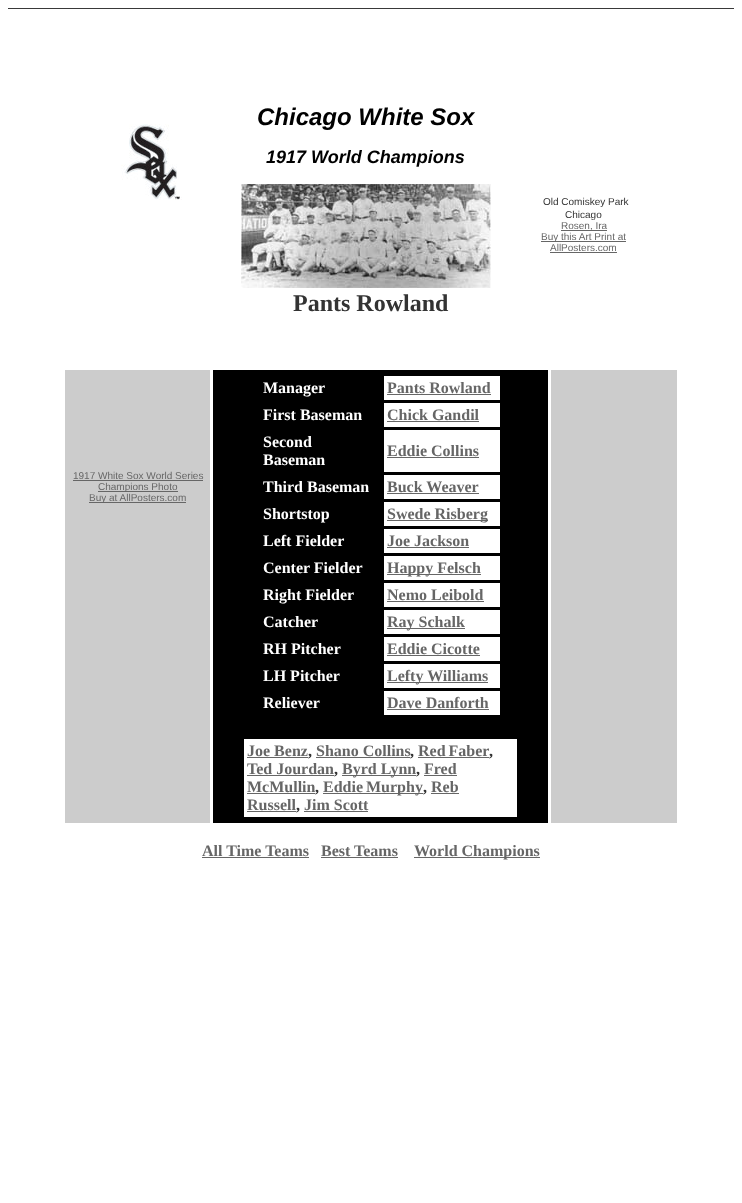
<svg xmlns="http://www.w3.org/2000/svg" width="742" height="1203">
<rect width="100%" height="100%" fill="#fff"/>
<rect x="8" y="8" width="726" height="1" fill="#393939"/>
<image x="121" y="124" width="61" height="76" href="media/1.png"/>
<text x="257" y="125" style="font-family:Liberation Sans;font-size:24px;font-weight:bold;font-style:italic;fill:#000">Chicago White Sox</text>
<text x="266" y="163" style="font-family:Liberation Sans;font-size:18px;font-weight:bold;font-style:italic;fill:#000">1917 World Champions</text>
<image x="241" y="184" width="250" height="104" href="media/2.png"/>
<text x="543" y="205" style="font-family:Liberation Sans;font-size:10px;fill:#333">Old Comiskey Park</text>
<text x="565" y="218" style="font-family:Liberation Sans;font-size:10px;fill:#333">Chicago</text>
<rect x="561" y="230" width="46" height="1" fill="#666"/>
<text x="561" y="229" style="font-family:Liberation Sans;font-size:10px;fill:#666">Rosen, Ira</text>
<rect x="541" y="241" width="85" height="1" fill="#666"/>
<text x="541" y="240" style="font-family:Liberation Sans;font-size:10px;fill:#666">Buy this Art Print at</text>
<text x="550" y="251" style="font-family:Liberation Sans;font-size:10px;fill:#666">AllPosters.com</text>
<rect x="550" y="252" width="67" height="1" fill="#666"/>
<text x="293" y="311" style="font-family:Liberation Serif;font-size:24px;font-weight:bold;fill:#333">Pants Rowland</text>
<rect x="65" y="370" width="145" height="453" fill="#ccc"/>
<text x="73" y="479" style="font-family:Liberation Sans;font-size:10px;fill:#666">1917 White Sox World Series</text>
<rect x="73" y="480" width="130" height="1" fill="#666"/>
<rect x="98" y="491" width="80" height="1" fill="#666"/>
<text x="98" y="490" style="font-family:Liberation Sans;font-size:10px;fill:#666">Champions Photo</text>
<rect x="89" y="502" width="97" height="1" fill="#666"/>
<text x="89" y="501" style="font-family:Liberation Sans;font-size:10px;fill:#666">Buy at AllPosters.com</text>
<rect x="213" y="370" width="335" height="453" fill="#000"/>
<text x="263" y="393" style="font-family:Liberation Serif;font-size:16px;font-weight:bold;fill:#fff">Manager</text>
<rect x="384" y="376" width="116" height="24" fill="#fff"/>
<text x="387" y="393" style="font-family:Liberation Serif;font-size:16px;font-weight:bold;fill:#666">Pants Rowland</text>
<rect x="387" y="394" width="104" height="1" fill="#666"/>
<text x="263" y="420" style="font-family:Liberation Serif;font-size:16px;font-weight:bold;fill:#fff">First Baseman</text>
<rect x="384" y="403" width="116" height="24" fill="#fff"/>
<text x="387" y="420" style="font-family:Liberation Serif;font-size:16px;font-weight:bold;fill:#666">Chick Gandil</text>
<rect x="387" y="421" width="92" height="1" fill="#666"/>
<text x="263" y="447" style="font-family:Liberation Serif;font-size:16px;font-weight:bold;fill:#fff">Second</text>
<text x="263" y="465" style="font-family:Liberation Serif;font-size:16px;font-weight:bold;fill:#fff">Baseman</text>
<rect x="384" y="430" width="116" height="42" fill="#fff"/>
<text x="387" y="456" style="font-family:Liberation Serif;font-size:16px;font-weight:bold;fill:#666">Eddie Collins</text>
<rect x="387" y="457" width="92" height="1" fill="#666"/>
<text x="263" y="492" style="font-family:Liberation Serif;font-size:16px;font-weight:bold;fill:#fff">Third Baseman</text>
<rect x="384" y="475" width="116" height="24" fill="#fff"/>
<text x="387" y="492" style="font-family:Liberation Serif;font-size:16px;font-weight:bold;fill:#666">Buck Weaver</text>
<rect x="387" y="493" width="92" height="1" fill="#666"/>
<text x="263" y="519" style="font-family:Liberation Serif;font-size:16px;font-weight:bold;fill:#fff">Shortstop</text>
<rect x="384" y="502" width="116" height="24" fill="#fff"/>
<rect x="387" y="520" width="101" height="1" fill="#666"/>
<text x="387" y="519" style="font-family:Liberation Serif;font-size:16px;font-weight:bold;fill:#666">Swede Risberg</text>
<text x="263" y="546" style="font-family:Liberation Serif;font-size:16px;font-weight:bold;fill:#fff">Left Fielder</text>
<rect x="384" y="529" width="116" height="24" fill="#fff"/>
<text x="387" y="546" style="font-family:Liberation Serif;font-size:16px;font-weight:bold;fill:#666">Joe Jackson</text>
<rect x="387" y="547" width="82" height="1" fill="#666"/>
<text x="263" y="573" style="font-family:Liberation Serif;font-size:16px;font-weight:bold;fill:#fff">Center Fielder</text>
<rect x="384" y="556" width="116" height="24" fill="#fff"/>
<rect x="387" y="574" width="94" height="1" fill="#666"/>
<text x="387" y="573" style="font-family:Liberation Serif;font-size:16px;font-weight:bold;fill:#666">Happy Felsch</text>
<text x="263" y="600" style="font-family:Liberation Serif;font-size:16px;font-weight:bold;fill:#fff">Right Fielder</text>
<rect x="384" y="583" width="116" height="24" fill="#fff"/>
<text x="387" y="600" style="font-family:Liberation Serif;font-size:16px;font-weight:bold;fill:#666">Nemo Leibold</text>
<rect x="387" y="601" width="97" height="1" fill="#666"/>
<text x="263" y="627" style="font-family:Liberation Serif;font-size:16px;font-weight:bold;fill:#fff">Catcher</text>
<rect x="384" y="610" width="116" height="24" fill="#fff"/>
<rect x="387" y="628" width="78" height="1" fill="#666"/>
<text x="387" y="627" style="font-family:Liberation Serif;font-size:16px;font-weight:bold;fill:#666">Ray Schalk</text>
<text x="263" y="654" style="font-family:Liberation Serif;font-size:16px;font-weight:bold;fill:#fff">RH Pitcher</text>
<rect x="384" y="637" width="116" height="24" fill="#fff"/>
<text x="387" y="654" style="font-family:Liberation Serif;font-size:16px;font-weight:bold;fill:#666">Eddie Cicotte</text>
<rect x="387" y="655" width="93" height="1" fill="#666"/>
<text x="263" y="681" style="font-family:Liberation Serif;font-size:16px;font-weight:bold;fill:#fff">LH Pitcher</text>
<rect x="384" y="664" width="116" height="24" fill="#fff"/>
<rect x="387" y="682" width="101" height="1" fill="#666"/>
<text x="387" y="681" style="font-family:Liberation Serif;font-size:16px;font-weight:bold;fill:#666">Lefty Williams</text>
<text x="263" y="708" style="font-family:Liberation Serif;font-size:16px;font-weight:bold;fill:#fff">Reliever</text>
<rect x="384" y="691" width="116" height="24" fill="#fff"/>
<text x="387" y="708" style="font-family:Liberation Serif;font-size:16px;font-weight:bold;fill:#666">Dave Danforth</text>
<rect x="387" y="709" width="102" height="1" fill="#666"/>
<rect x="244" y="739" width="273" height="78" fill="#fff"/>
<text x="247" y="756" style="font-family:Liberation Serif;font-size:16px;font-weight:bold;fill:#666">Joe Benz</text>
<rect x="247" y="757" width="61" height="1" fill="#666"/>
<text x="308" y="756" style="font-family:Liberation Serif;font-size:16px;font-weight:bold;fill:#333">,</text>
<text x="316" y="756" style="font-family:Liberation Serif;font-size:16px;font-weight:bold;fill:#666">Shano Collins</text>
<text x="410" y="756" style="font-family:Liberation Serif;font-size:16px;font-weight:bold;fill:#333">,</text>
<rect x="316" y="757" width="94" height="1" fill="#666"/>
<text x="418" y="756" word-spacing="-1" style="font-family:Liberation Serif;font-size:16px;font-weight:bold;fill:#666">Red Faber</text>
<text x="489" y="756" style="font-family:Liberation Serif;font-size:16px;font-weight:bold;fill:#333">,</text>
<rect x="418" y="757" width="71" height="1" fill="#666"/>
<text x="247" y="774" style="font-family:Liberation Serif;font-size:16px;font-weight:bold;fill:#666">Ted Jourdan</text>
<text x="334" y="774" style="font-family:Liberation Serif;font-size:16px;font-weight:bold;fill:#333">,</text>
<rect x="247" y="775" width="87" height="1" fill="#666"/>
<rect x="342" y="775" width="74" height="1" fill="#666"/>
<text x="342" y="774" style="font-family:Liberation Serif;font-size:16px;font-weight:bold;fill:#666">Byrd Lynn</text>
<text x="416" y="774" style="font-family:Liberation Serif;font-size:16px;font-weight:bold;fill:#333">,</text>
<rect x="424" y="775" width="33" height="1" fill="#666"/>
<text x="424" y="774" style="font-family:Liberation Serif;font-size:16px;font-weight:bold;fill:#666">Fred</text>
<text x="247" y="792" style="font-family:Liberation Serif;font-size:16px;font-weight:bold;fill:#666">McMullin</text>
<text x="315" y="792" style="font-family:Liberation Serif;font-size:16px;font-weight:bold;fill:#333">,</text>
<rect x="247" y="793" width="68" height="1" fill="#666"/>
<rect x="323" y="793" width="100" height="1" fill="#666"/>
<text x="323" y="792" word-spacing="-1" style="font-family:Liberation Serif;font-size:16px;font-weight:bold;fill:#666">Eddie Murphy</text>
<text x="423" y="792" style="font-family:Liberation Serif;font-size:16px;font-weight:bold;fill:#333">,</text>
<rect x="431" y="793" width="28" height="1" fill="#666"/>
<text x="431" y="792" style="font-family:Liberation Serif;font-size:16px;font-weight:bold;fill:#666">Reb</text>
<text x="247" y="810" style="font-family:Liberation Serif;font-size:16px;font-weight:bold;fill:#666">Russell</text>
<rect x="247" y="811" width="49" height="1" fill="#666"/>
<text x="296" y="810" style="font-family:Liberation Serif;font-size:16px;font-weight:bold;fill:#333">,</text>
<rect x="304" y="811" width="64" height="1" fill="#666"/>
<text x="304" y="810" style="font-family:Liberation Serif;font-size:16px;font-weight:bold;fill:#666">Jim Scott</text>
<rect x="551" y="370" width="126" height="453" fill="#ccc"/>
<text x="202" y="856" style="font-family:Liberation Serif;font-size:16px;font-weight:bold;fill:#666">All Time Teams</text>
<rect x="202" y="857" width="107" height="1" fill="#666"/>
<text x="321" y="856" style="font-family:Liberation Serif;font-size:16px;font-weight:bold;fill:#666">Best Teams</text>
<rect x="321" y="857" width="77" height="1" fill="#666"/>
<rect x="414" y="857" width="126" height="1" fill="#666"/>
<text x="414" y="856" style="font-family:Liberation Serif;font-size:16px;font-weight:bold;fill:#666">World Champions</text>
</svg>
